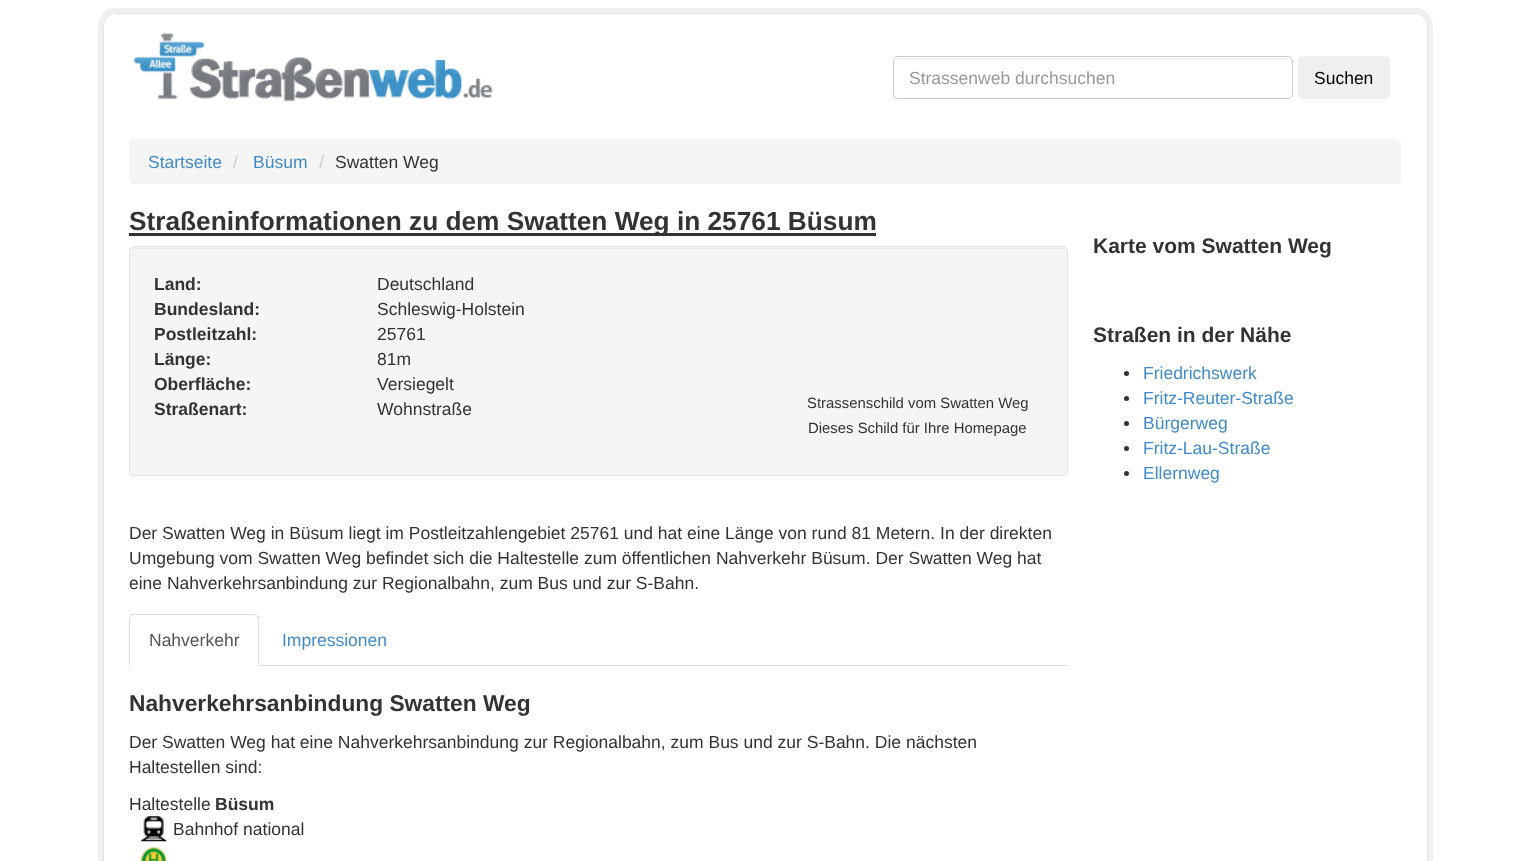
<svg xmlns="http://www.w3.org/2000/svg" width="1530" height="861">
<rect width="100%" height="100%" fill="#fff"/>
<rect x="100.5" y="10.5" width="1330" height="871" rx="15.5" fill="none" stroke="#f0f0f0" stroke-width="5"/>
<rect x="103.5" y="13.5" width="1324" height="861" rx="12.5" fill="none" stroke="#e3e3e3"/>
<image x="133" y="32" width="360" height="70" href="media/1.png"/>
<path d="M898 59h391l1 1l-2-2h-390c-2 0-3 1-4 2c1-1 2-1 4-1z" fill="#ececec"/>
<rect x="893.5" y="56.5" width="399" height="42" rx="4.5" fill="none" stroke="#ccc"/>
<text x="909" y="84" style="font-family:Liberation Sans;font-size:17.5px;fill:#999">Strassenweb durchsuchen</text>
<rect x="1298" y="56" width="92" height="43" rx="5" fill="#efefef"/>
<text x="1314" y="84" style="font-family:Liberation Sans;font-size:17.5px;fill:#000">Suchen</text>
<rect x="129" y="139" width="1272" height="45" rx="5" fill="#f5f5f5"/>
<text x="148" y="168" style="font-family:Liberation Sans;font-size:17.5px;fill:#428bca">Startseite</text>
<text x="233" y="168" style="font-family:Liberation Sans;font-size:17.5px;fill:#ccc">/</text>
<text x="253" y="168" style="font-family:Liberation Sans;font-size:17.5px;fill:#428bca">Büsum</text>
<text x="319" y="168" style="font-family:Liberation Sans;font-size:17.5px;fill:#ccc">/</text>
<text x="335" y="168" style="font-family:Liberation Sans;font-size:17.5px;fill:#333">Swatten Weg</text>
<rect x="129" y="233" width="747" height="3" fill="#333"/>
<text x="129" y="230" style="font-family:Liberation Sans;font-size:26.25px;font-weight:bold;fill:#333">Straßeninformationen zu dem Swatten Weg in 25761 Büsum</text>
<rect x="129" y="246" width="939" height="230" rx="5" fill="#f5f5f5"/>
<path d="M134 249h928c2 0 3 0 4 1c-1-1-2-2-4-2h-928c-2 0-4 2-4 4c0-2 2-3 4-3z" fill="#e9e9e9"/>
<rect x="129.5" y="246.5" width="938" height="229" rx="4.5" fill="none" stroke="#e3e3e3"/>
<text x="154" y="290" style="font-family:Liberation Sans;font-size:17.5px;font-weight:bold;fill:#333">Land:</text>
<text x="377" y="290" style="font-family:Liberation Sans;font-size:17.5px;fill:#333">Deutschland</text>
<text x="154" y="315" style="font-family:Liberation Sans;font-size:17.5px;font-weight:bold;fill:#333">Bundesland:</text>
<text x="377" y="315" style="font-family:Liberation Sans;font-size:17.5px;fill:#333">Schleswig-Holstein</text>
<text x="154" y="340" style="font-family:Liberation Sans;font-size:17.5px;font-weight:bold;fill:#333">Postleitzahl:</text>
<text x="377" y="340" style="font-family:Liberation Sans;font-size:17.5px;fill:#333">25761</text>
<text x="154" y="365" style="font-family:Liberation Sans;font-size:17.5px;font-weight:bold;fill:#333">Länge:</text>
<text x="377" y="365" style="font-family:Liberation Sans;font-size:17.5px;fill:#333">81m</text>
<text x="154" y="390" style="font-family:Liberation Sans;font-size:17.5px;font-weight:bold;fill:#333">Oberfläche:</text>
<text x="377" y="390" style="font-family:Liberation Sans;font-size:17.5px;fill:#333">Versiegelt</text>
<text x="154" y="415" style="font-family:Liberation Sans;font-size:17.5px;font-weight:bold;fill:#333">Straßenart:</text>
<text x="377" y="415" style="font-family:Liberation Sans;font-size:17.5px;fill:#333">Wohnstraße</text>
<text x="807" y="408" style="font-family:Liberation Sans;font-size:14.9px;fill:#333">Strassenschild vom Swatten Weg</text>
<text x="808" y="433" style="font-family:Liberation Sans;font-size:14.9px;fill:#333">Dieses Schild für Ihre Homepage</text>
<text x="129" y="539" style="font-family:Liberation Sans;font-size:17.5px;fill:#333">Der Swatten Weg in Büsum liegt im Postleitzahlengebiet 25761 und hat eine Länge von rund 81 Metern. In der direkten</text>
<text x="129" y="564" style="font-family:Liberation Sans;font-size:17.5px;fill:#333">Umgebung vom Swatten Weg befindet sich die Haltestelle zum öffentlichen Nahverkehr Büsum. Der Swatten Weg hat</text>
<text x="129" y="589" style="font-family:Liberation Sans;font-size:17.5px;fill:#333">eine Nahverkehrsanbindung zur Regionalbahn, zum Bus und zur S-Bahn.</text>
<rect x="259" y="665" width="809" height="1" fill="#ddd"/>
<path d="M134 614c-2 0-3 0-4 1l1 1l3-1h120l2 1l1-1l-3-1z" fill="#ddd"/>
<path d="M257 615l2 2v49l-1-1v-47l-2-2z" fill="#ddd"/>
<path d="M130 615c0 1-1 3-1 4v47l1-1v-46c0-1 0-2 1-3z" fill="#ddd"/>
<text x="149" y="646" style="font-family:Liberation Sans;font-size:17.5px;fill:#555">Nahverkehr</text>
<text x="282" y="646" style="font-family:Liberation Sans;font-size:17.5px;fill:#428bca">Impressionen</text>
<text x="129" y="711" style="font-family:Liberation Sans;font-size:22.75px;font-weight:bold;fill:#333">Nahverkehrsanbindung Swatten Weg</text>
<text x="129" y="748" style="font-family:Liberation Sans;font-size:17.5px;fill:#333">Der Swatten Weg hat eine Nahverkehrsanbindung zur Regionalbahn, zum Bus und zur S-Bahn. Die nächsten</text>
<text x="129" y="773" style="font-family:Liberation Sans;font-size:17.5px;fill:#333">Haltestellen sind:</text>
<text x="129" y="810" style="font-family:Liberation Sans;font-size:17.5px;fill:#333">Haltestelle</text>
<text x="215" y="810" style="font-family:Liberation Sans;font-size:17.5px;font-weight:bold;fill:#333">Büsum</text>
<image x="141" y="816" width="26" height="26" href="media/2.png"/>
<text x="173" y="835" style="font-family:Liberation Sans;font-size:17.5px;fill:#333">Bahnhof national</text>
<image x="141" y="847" width="26" height="14" href="media/3.png"/>
<text x="1093" y="253" style="font-family:Liberation Sans;font-size:21px;font-weight:bold;fill:#333">Karte vom Swatten Weg</text>
<text x="1093" y="342" style="font-family:Liberation Sans;font-size:21px;font-weight:bold;fill:#333">Straßen in der Nähe</text>
<circle cx="1126.5" cy="373.5" r="2.5" fill="#333"/>
<text x="1143" y="379" style="font-family:Liberation Sans;font-size:17.5px;fill:#428bca">Friedrichswerk</text>
<circle cx="1126.5" cy="398.5" r="2.5" fill="#333"/>
<text x="1143" y="404" style="font-family:Liberation Sans;font-size:17.5px;fill:#428bca">Fritz-Reuter-Straße</text>
<circle cx="1126.5" cy="423.5" r="2.5" fill="#333"/>
<text x="1143" y="429" style="font-family:Liberation Sans;font-size:17.5px;fill:#428bca">Bürgerweg</text>
<circle cx="1126.5" cy="448.5" r="2.5" fill="#333"/>
<text x="1143" y="454" style="font-family:Liberation Sans;font-size:17.5px;fill:#428bca">Fritz-Lau-Straße</text>
<circle cx="1126.5" cy="473.5" r="2.5" fill="#333"/>
<text x="1143" y="479" style="font-family:Liberation Sans;font-size:17.5px;fill:#428bca">Ellernweg</text>
</svg>
